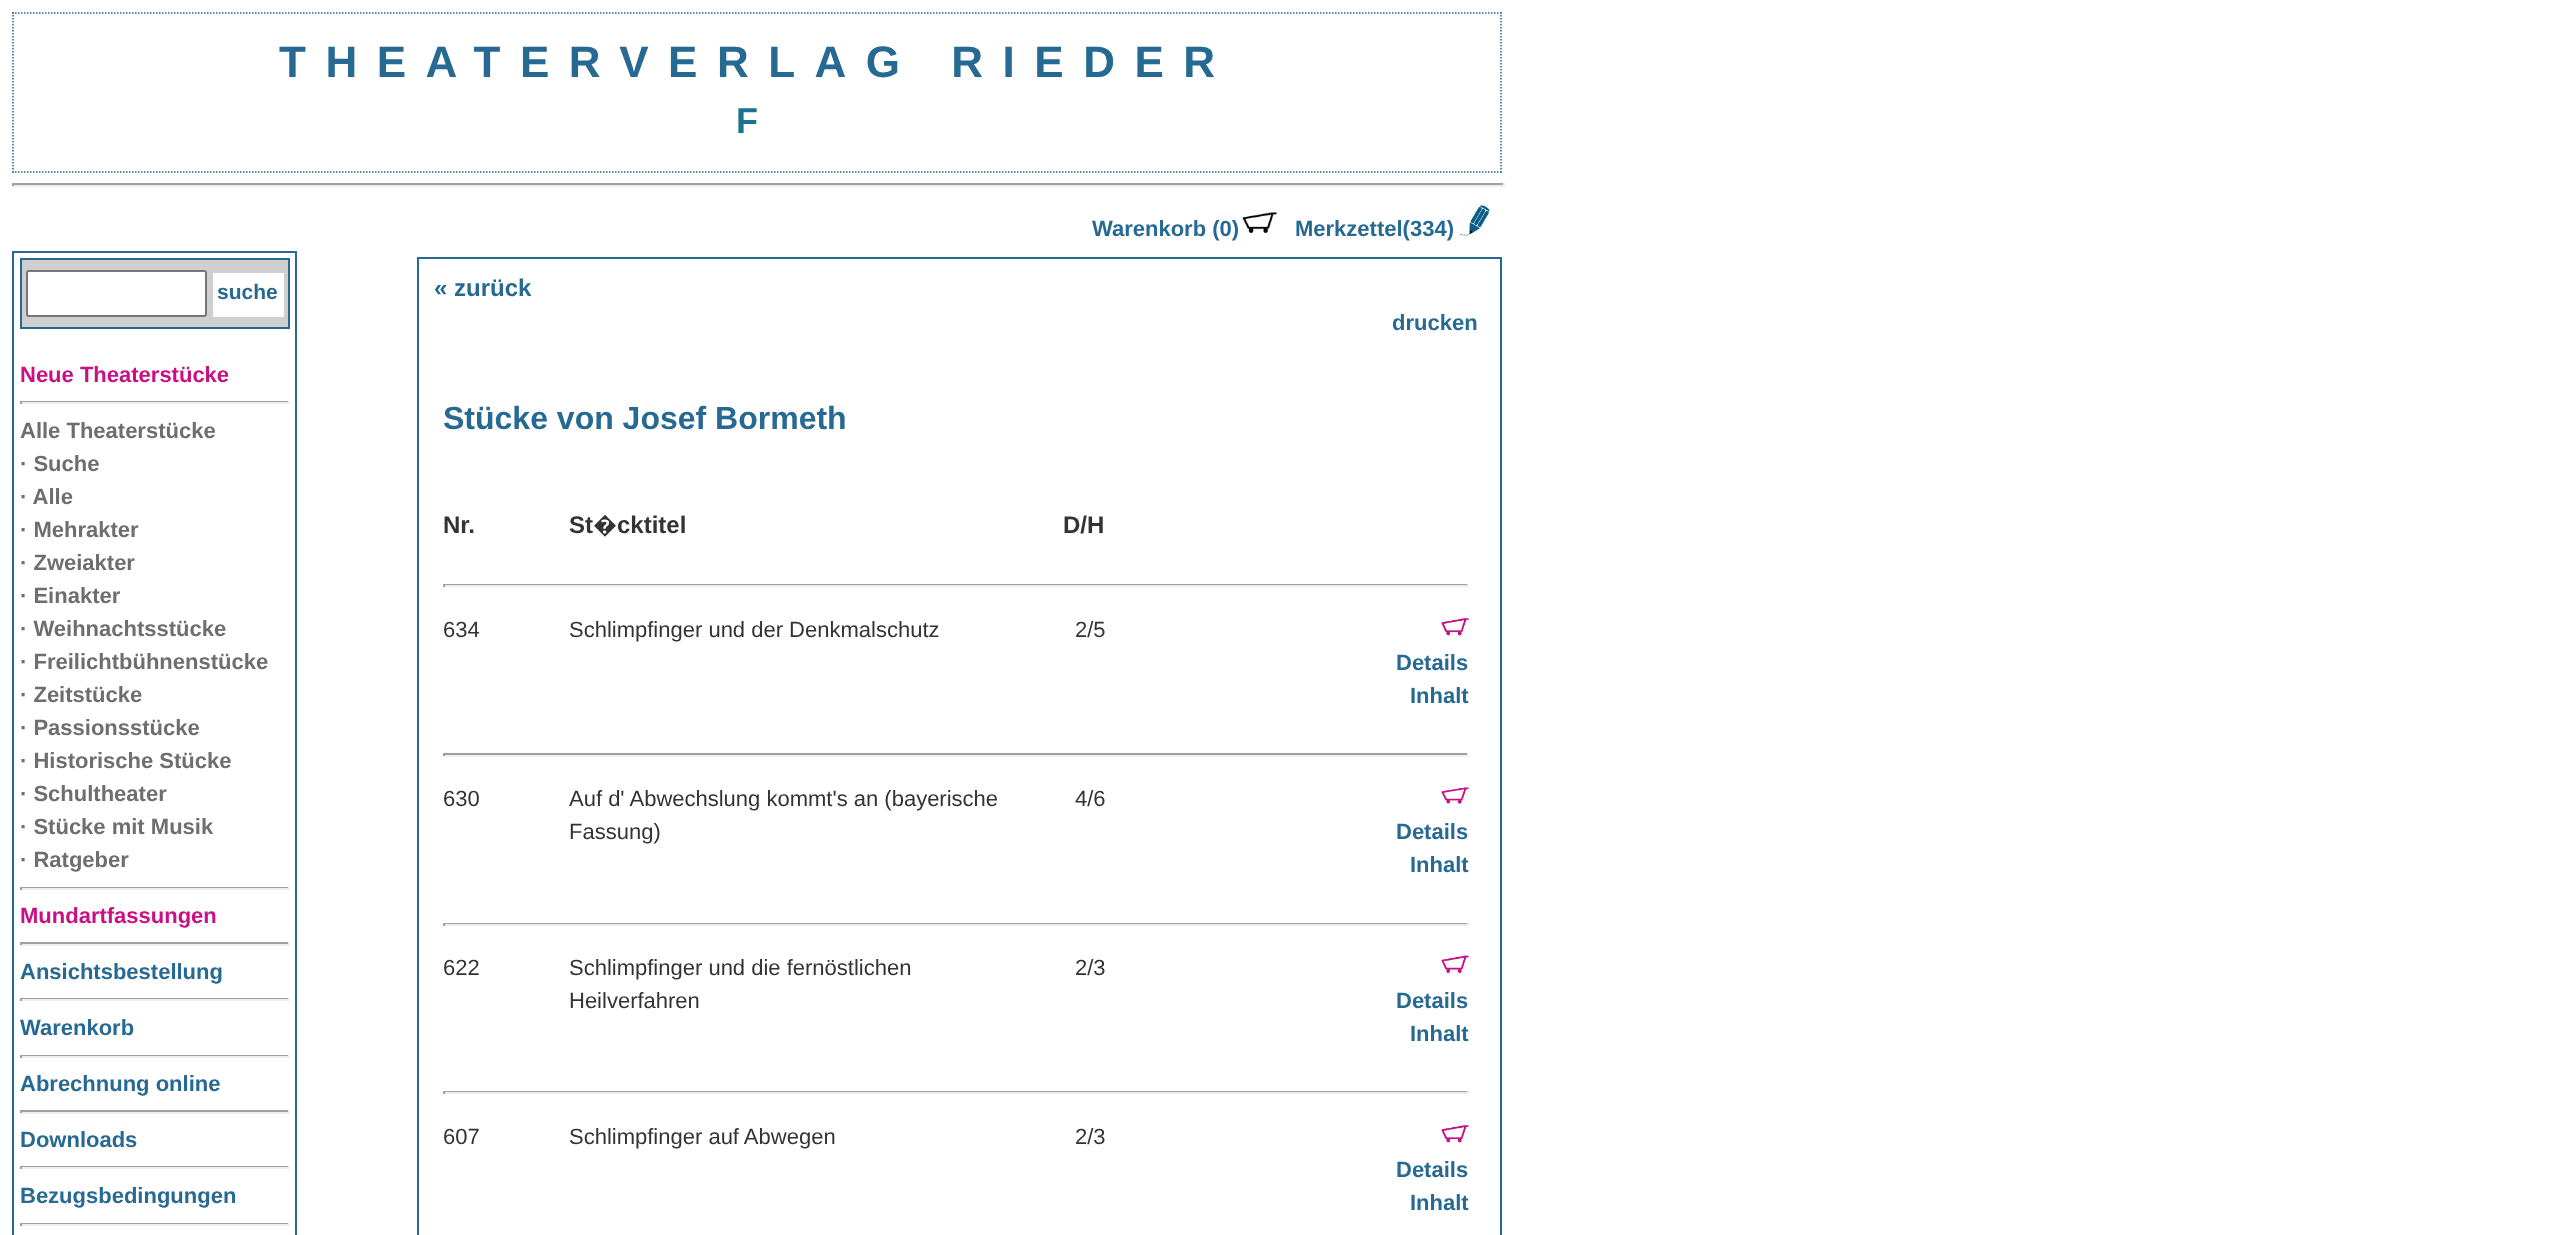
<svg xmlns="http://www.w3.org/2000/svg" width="2559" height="1235">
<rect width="100%" height="100%" fill="#fff"/>
<path d="M12 13h1489.5" fill="none" stroke="#266993" stroke-width="1.5" stroke-dasharray="1.5 1.5"/>
<path d="M1501 12v160.5" fill="none" stroke="#266993" stroke-width="1.5" stroke-dasharray="1.5 1.5"/>
<path d="M12 172h1489.5" fill="none" stroke="#266993" stroke-width="1.5" stroke-dasharray="1.5 1.5"/>
<path d="M13 12v160.5" fill="none" stroke="#266993" stroke-width="1.5" stroke-dasharray="1.5 1.5"/>
<text x="279" y="77" style="font-family:Liberation Sans;font-size:44px;font-weight:bold;letter-spacing:19.5px;fill:#266993">THEATERVERLAG RIEDER</text>
<text x="736" y="133" style="font-family:Liberation Sans;font-size:36px;font-weight:bold;letter-spacing:19.5px;fill:#1a7391">F</text>
<rect x="12" y="183" width="1493" height="2" fill="#9f9f9f"/>
<rect x="1503" y="183" width="2" height="3" fill="#eee"/>
<rect x="12" y="185" width="1493" height="2" fill="#eee"/>
<rect x="12" y="183" width="2" height="3" fill="#9f9f9f"/>
<text x="1092" y="236" style="font-family:Liberation Sans;font-size:22px;font-weight:bold;fill:#266993">Warenkorb (0)</text>
<image x="1242" y="212" width="35" height="22" href="media/1.png"/>
<text x="1295" y="236" style="font-family:Liberation Sans;font-size:22px;font-weight:bold;fill:#266993">Merkzettel(334)</text>
<image x="1459" y="205" width="31" height="31" href="media/2.png"/>
<rect x="13" y="252" width="283" height="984" fill="none" stroke="#266993" stroke-width="2"/>
<rect x="21" y="259" width="268" height="69" fill="#cfcfcf" stroke="#266993" stroke-width="2"/>
<rect x="27" y="271" width="179" height="45" rx="2" fill="#fff" stroke="#767676" stroke-width="2"/>
<rect x="213" y="273" width="71" height="44" fill="#fff"/>
<text x="217" y="299" style="font-family:Liberation Sans;font-size:21px;font-weight:bold;fill:#266993">suche</text>
<text x="20" y="382" style="font-family:Liberation Sans;font-size:22px;font-weight:bold;fill:#ca0f86">Neue Theaterstücke</text>
<rect x="20" y="401" width="270" height="1" fill="#9f9f9f"/>
<rect x="288" y="401" width="2" height="3" fill="#eee"/>
<rect x="20" y="402" width="270" height="2" fill="#eee"/>
<rect x="20" y="401" width="2" height="3" fill="#9f9f9f"/>
<text x="20" y="438" style="font-family:Liberation Sans;font-size:22px;font-weight:bold;fill:#6e6e6e">Alle Theaterstücke</text>
<text x="20" y="471" style="font-family:Liberation Sans;font-size:22px;font-weight:bold;fill:#6e6e6e">· Suche</text>
<text x="20" y="504" style="font-family:Liberation Sans;font-size:22px;font-weight:bold;fill:#6e6e6e">· Alle</text>
<text x="20" y="537" style="font-family:Liberation Sans;font-size:22px;font-weight:bold;fill:#6e6e6e">· Mehrakter</text>
<text x="20" y="570" style="font-family:Liberation Sans;font-size:22px;font-weight:bold;fill:#6e6e6e">· Zweiakter</text>
<text x="20" y="603" style="font-family:Liberation Sans;font-size:22px;font-weight:bold;fill:#6e6e6e">· Einakter</text>
<text x="20" y="636" style="font-family:Liberation Sans;font-size:22px;font-weight:bold;fill:#6e6e6e">· Weihnachtsstücke</text>
<text x="20" y="669" style="font-family:Liberation Sans;font-size:22px;font-weight:bold;fill:#6e6e6e">· Freilichtbühnenstücke</text>
<text x="20" y="702" style="font-family:Liberation Sans;font-size:22px;font-weight:bold;fill:#6e6e6e">· Zeitstücke</text>
<text x="20" y="735" style="font-family:Liberation Sans;font-size:22px;font-weight:bold;fill:#6e6e6e">· Passionsstücke</text>
<text x="20" y="768" style="font-family:Liberation Sans;font-size:22px;font-weight:bold;fill:#6e6e6e">· Historische Stücke</text>
<text x="20" y="801" style="font-family:Liberation Sans;font-size:22px;font-weight:bold;fill:#6e6e6e">· Schultheater</text>
<text x="20" y="834" style="font-family:Liberation Sans;font-size:22px;font-weight:bold;fill:#6e6e6e">· Stücke mit Musik</text>
<text x="20" y="867" style="font-family:Liberation Sans;font-size:22px;font-weight:bold;fill:#6e6e6e">· Ratgeber</text>
<rect x="20" y="887" width="270" height="1" fill="#9f9f9f"/>
<rect x="288" y="887" width="2" height="3" fill="#eee"/>
<rect x="20" y="888" width="270" height="2" fill="#eee"/>
<rect x="20" y="887" width="2" height="3" fill="#9f9f9f"/>
<text x="20" y="923" style="font-family:Liberation Sans;font-size:22px;font-weight:bold;fill:#ca0f86">Mundartfassungen</text>
<rect x="20" y="942" width="270" height="2" fill="#9f9f9f"/>
<rect x="288" y="942" width="2" height="3" fill="#eee"/>
<rect x="20" y="944" width="270" height="2" fill="#eee"/>
<rect x="20" y="942" width="2" height="3" fill="#9f9f9f"/>
<text x="20" y="979" style="font-family:Liberation Sans;font-size:22px;font-weight:bold;fill:#266993">Ansichtsbestellung</text>
<rect x="20" y="998" width="270" height="1" fill="#9f9f9f"/>
<rect x="288" y="998" width="2" height="3" fill="#eee"/>
<rect x="20" y="999" width="270" height="2" fill="#eee"/>
<rect x="20" y="998" width="2" height="3" fill="#9f9f9f"/>
<text x="20" y="1035" style="font-family:Liberation Sans;font-size:22px;font-weight:bold;fill:#266993">Warenkorb</text>
<rect x="20" y="1055" width="270" height="1" fill="#9f9f9f"/>
<rect x="288" y="1055" width="2" height="3" fill="#eee"/>
<rect x="20" y="1056" width="270" height="2" fill="#eee"/>
<rect x="20" y="1055" width="2" height="3" fill="#9f9f9f"/>
<text x="20" y="1091" style="font-family:Liberation Sans;font-size:22px;font-weight:bold;fill:#266993">Abrechnung online</text>
<rect x="20" y="1110" width="270" height="2" fill="#9f9f9f"/>
<rect x="288" y="1110" width="2" height="3" fill="#eee"/>
<rect x="20" y="1112" width="270" height="2" fill="#eee"/>
<rect x="20" y="1110" width="2" height="3" fill="#9f9f9f"/>
<text x="20" y="1147" style="font-family:Liberation Sans;font-size:22px;font-weight:bold;fill:#266993">Downloads</text>
<rect x="20" y="1166" width="270" height="1" fill="#9f9f9f"/>
<rect x="288" y="1166" width="2" height="3" fill="#eee"/>
<rect x="20" y="1167" width="270" height="2" fill="#eee"/>
<rect x="20" y="1166" width="2" height="3" fill="#9f9f9f"/>
<text x="20" y="1203" style="font-family:Liberation Sans;font-size:22px;font-weight:bold;fill:#266993">Bezugsbedingungen</text>
<rect x="20" y="1223" width="270" height="1" fill="#9f9f9f"/>
<rect x="288" y="1223" width="2" height="3" fill="#eee"/>
<rect x="20" y="1224" width="270" height="2" fill="#eee"/>
<rect x="20" y="1223" width="2" height="3" fill="#9f9f9f"/>
<rect x="418" y="258" width="1083" height="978" fill="none" stroke="#266993" stroke-width="2"/>
<text x="434" y="296" style="font-family:Liberation Sans;font-size:24px;font-weight:bold;fill:#266993">« zurück</text>
<text x="1392" y="330" style="font-family:Liberation Sans;font-size:22px;font-weight:bold;fill:#266993">drucken</text>
<text x="443" y="429" style="font-family:Liberation Sans;font-size:32px;font-weight:bold;fill:#266993">Stücke von Josef Bormeth</text>
<text x="443" y="533" style="font-family:Liberation Sans;font-size:24px;font-weight:bold;fill:#333">Nr.</text>
<text x="569" y="533" style="font-family:Liberation Sans;font-size:24px;font-weight:bold;fill:#333">St</text>
<text x="593" y="533" style="font-family:Noto Sans;font-size:24px;font-weight:bold;fill:#333">�</text>
<text x="617" y="533" style="font-family:Liberation Sans;font-size:24px;font-weight:bold;fill:#333">cktitel</text>
<text x="1063" y="533" style="font-family:Liberation Sans;font-size:24px;font-weight:bold;fill:#333">D/H</text>
<rect x="443" y="584" width="1026" height="1" fill="#9f9f9f"/>
<rect x="1467" y="584" width="2" height="3" fill="#eee"/>
<rect x="443" y="585" width="1026" height="2" fill="#eee"/>
<rect x="443" y="584" width="2" height="3" fill="#9f9f9f"/>
<text x="443" y="637" style="font-family:Liberation Sans;font-size:22px;fill:#333">634</text>
<text x="569" y="637" style="font-family:Liberation Sans;font-size:22px;fill:#333">Schlimpfinger und der Denkmalschutz</text>
<text x="1075" y="637" style="font-family:Liberation Sans;font-size:22px;fill:#333">2/5</text>
<image x="1441" y="618" width="28" height="18" href="media/3.png"/>
<text x="1396" y="670" style="font-family:Liberation Sans;font-size:22px;font-weight:bold;fill:#266993">Details</text>
<text x="1410" y="703" style="font-family:Liberation Sans;font-size:22px;font-weight:bold;fill:#266993">Inhalt</text>
<rect x="443" y="753" width="1026" height="2" fill="#9f9f9f"/>
<rect x="1467" y="753" width="2" height="3" fill="#eee"/>
<rect x="443" y="755" width="1026" height="2" fill="#eee"/>
<rect x="443" y="753" width="2" height="3" fill="#9f9f9f"/>
<text x="443" y="806" style="font-family:Liberation Sans;font-size:22px;fill:#333">630</text>
<text x="569" y="806" style="font-family:Liberation Sans;font-size:22px;fill:#333">Auf d' Abwechslung kommt's an (bayerische</text>
<text x="569" y="839" style="font-family:Liberation Sans;font-size:22px;fill:#333">Fassung)</text>
<text x="1075" y="806" style="font-family:Liberation Sans;font-size:22px;fill:#333">4/6</text>
<image x="1441" y="787" width="28" height="17" href="media/4.png"/>
<text x="1396" y="839" style="font-family:Liberation Sans;font-size:22px;font-weight:bold;fill:#266993">Details</text>
<text x="1410" y="872" style="font-family:Liberation Sans;font-size:22px;font-weight:bold;fill:#266993">Inhalt</text>
<rect x="443" y="923" width="1026" height="1" fill="#9f9f9f"/>
<rect x="1467" y="923" width="2" height="3" fill="#eee"/>
<rect x="443" y="924" width="1026" height="2" fill="#eee"/>
<rect x="443" y="923" width="2" height="3" fill="#9f9f9f"/>
<text x="443" y="975" style="font-family:Liberation Sans;font-size:22px;fill:#333">622</text>
<text x="569" y="975" style="font-family:Liberation Sans;font-size:22px;fill:#333">Schlimpfinger und die fernöstlichen</text>
<text x="569" y="1008" style="font-family:Liberation Sans;font-size:22px;fill:#333">Heilverfahren</text>
<text x="1075" y="975" style="font-family:Liberation Sans;font-size:22px;fill:#333">2/3</text>
<image x="1441" y="955" width="28" height="19" href="media/5.png"/>
<text x="1396" y="1008" style="font-family:Liberation Sans;font-size:22px;font-weight:bold;fill:#266993">Details</text>
<text x="1410" y="1041" style="font-family:Liberation Sans;font-size:22px;font-weight:bold;fill:#266993">Inhalt</text>
<rect x="443" y="1091" width="1026" height="1" fill="#9f9f9f"/>
<rect x="1467" y="1091" width="2" height="3" fill="#eee"/>
<rect x="443" y="1092" width="1026" height="2" fill="#eee"/>
<rect x="443" y="1091" width="2" height="3" fill="#9f9f9f"/>
<text x="443" y="1144" style="font-family:Liberation Sans;font-size:22px;fill:#333">607</text>
<text x="569" y="1144" style="font-family:Liberation Sans;font-size:22px;fill:#333">Schlimpfinger auf Abwegen</text>
<text x="1075" y="1144" style="font-family:Liberation Sans;font-size:22px;fill:#333">2/3</text>
<image x="1441" y="1125" width="28" height="18" href="media/3.png"/>
<text x="1396" y="1177" style="font-family:Liberation Sans;font-size:22px;font-weight:bold;fill:#266993">Details</text>
<text x="1410" y="1210" style="font-family:Liberation Sans;font-size:22px;font-weight:bold;fill:#266993">Inhalt</text>
</svg>
